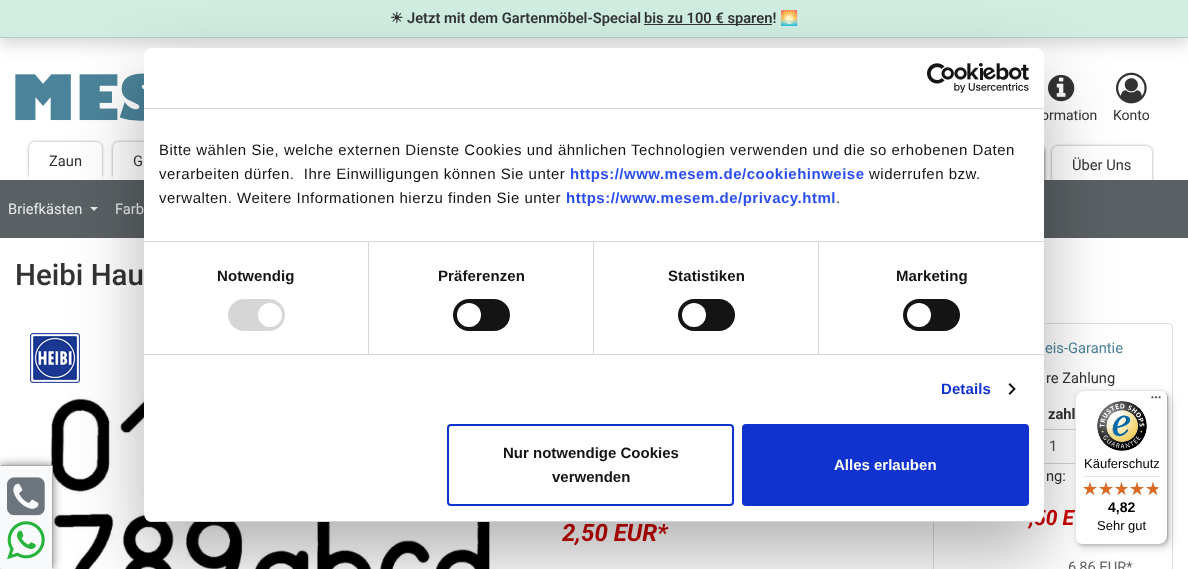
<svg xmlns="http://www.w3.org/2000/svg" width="1188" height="569">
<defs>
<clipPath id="clip1"><path d="M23 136h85v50h-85zm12 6h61c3.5 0 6 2.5 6 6v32h-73v-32c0-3.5 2.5-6 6-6z" clip-rule="evenodd"/></clipPath>
<clipPath id="clip2"><path d="M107 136h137v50h-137zm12 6h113c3.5 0 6 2.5 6 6v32h-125v-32c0-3.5 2.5-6 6-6z" clip-rule="evenodd"/></clipPath>
<clipPath id="clip3"><path d="M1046 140h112v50h-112zm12 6h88c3.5 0 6 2.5 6 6v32h-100v-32c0-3.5 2.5-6 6-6z" clip-rule="evenodd"/></clipPath>
<clipPath id="clip4"><rect x="144" y="48" width="900" height="474" rx="8"/></clipPath>
</defs>
<rect width="100%" height="100%" fill="#fff"/>
<rect y="7" width="1188" height="38" fill="#00000026" filter="blur(7.5px)"/>
<rect width="1188" height="37" fill="#cfede1"/>
<rect y="37" width="1188" height="1" fill="#b5ccc3"/>
<text x="390" y="23" style="font-family:DejaVu Sans;font-size:14.7px;font-weight:bold;fill:#333">☀</text>
<text x="407" y="23" style="font-family:Roboto;font-size:14.7px;font-weight:600;fill:#333">Jetzt mit dem Gartenmöbel-Special</text>
<rect x="644" y="24" width="128" height="1" fill="#333"/>
<text x="644" y="23" style="font-family:Roboto;font-size:14.7px;font-weight:600;fill:#333">bis zu 100 € sparen!</text>
<text x="780" y="23" style="font-family:Noto Color Emoji;font-size:14.7px;font-weight:bold;fill:#333">🌅</text>
<image x="15" y="73" width="129" height="48" href="media/1.png"/>
<image x="1048" y="74" width="27" height="28" href="media/2.png"/>
<text x="1041" y="120" style="font-family:Roboto;font-size:14px;fill:#333">ormation</text>
<image x="1116" y="72" width="31" height="32" href="media/3.png"/>
<text x="1113" y="120" style="font-family:Roboto;font-size:14px;fill:#333">Konto</text>
<g clip-path="url(#clip1)">
<rect x="29" y="142" width="73" height="38" rx="6" fill="#00000066" filter="blur(1.5px)"/>
</g>
<text x="49" y="166" style="font-family:Roboto;font-size:14.7px;fill:#333">Zaun</text>
<g clip-path="url(#clip2)">
<rect x="113" y="142" width="125" height="38" rx="6" fill="#00000066" filter="blur(1.5px)"/>
</g>
<text x="133" y="166" style="font-family:Roboto;font-size:14.7px;fill:#333">G</text>
<rect x="927" y="146" width="118" height="38" rx="6" fill="#00000066" filter="blur(1.5px)"/>
<g clip-path="url(#clip3)">
<rect x="1052" y="146" width="100" height="38" rx="6" fill="#00000066" filter="blur(1.5px)"/>
</g>
<text x="1072" y="170" style="font-family:Roboto;font-size:14.7px;fill:#333">Über Uns</text>
<rect y="180" width="1188" height="58" fill="#5a6164"/>
<text x="8" y="214" style="font-family:Roboto;font-size:14.7px;fill:#eaeaea">Briefkästen</text>
<path d="M90 207h8l-4 4z" fill="#eaeaea"/>
<text x="115" y="214" style="font-family:Roboto;font-size:14.7px;fill:#eaeaea">Farb</text>
<text x="15" y="285" style="font-family:Roboto;font-size:29.5px;font-weight:500;fill:#333">Heibi Hau</text>
<image x="30" y="333" width="50" height="50" href="media/4.png"/>
<image x="50" y="397" width="440" height="172" href="media/5.png"/>
<text x="562" y="541" style="font-family:Roboto;font-size:24px;font-weight:bold;font-style:italic;fill:#c00">2,50 EUR*</text>
<rect x="933.5" y="323.5" width="239" height="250" rx="3.5" fill="none" stroke="#ddd"/>
<text x="1045" y="353" style="font-family:Roboto;font-size:14.7px;fill:#4b849a">eis-Garantie</text>
<text x="1046" y="383" style="font-family:Roboto;font-size:14.7px;fill:#333">re Zahlung</text>
<text x="1048" y="419" style="font-family:Roboto;font-size:14.7px;font-weight:bold;fill:#333">zahl</text>
<rect x="993.5" y="429.5" width="119" height="34" fill="none" stroke="#ced4da"/>
<text x="1049" y="451" style="font-family:Roboto;font-size:14.7px;fill:#495057">1</text>
<text x="1046" y="481" style="font-family:Roboto;font-size:14.7px;fill:#333">ng:</text>
<text x="1029" y="525" style="font-family:Roboto;font-size:21px;font-weight:bold;font-style:italic;fill:#c00">,50 E</text>
<text x="1068" y="572" style="font-family:Roboto;font-size:14.7px;fill:#666">6,86 EUR*</text>
<rect y="465" width="53" height="104" rx="2" fill="#00000080" filter="blur(5px)"/>
<rect y="465" width="53" height="104" rx="2" fill="#f8f9fa"/>
<rect x="1" y="465" width="51" height="1" fill="#aaa"/>
<rect x="52" y="466" width="1" height="102" fill="#aaa"/>
<image x="7" y="477" width="38" height="39" href="media/7.png"/>
<image x="7" y="521" width="38" height="39" href="media/8.png"/>
<rect x="144" y="80" width="900" height="474" rx="8" fill="#0000004d" filter="blur(34px)"/>
<rect x="144" y="48" width="900" height="474" rx="8" fill="#fff"/>
<rect x="144" y="108" width="900" height="1" fill="#d6d6d6"/>
<image x="927" y="63" width="102" height="30" href="media/6.png"/>
<rect x="144" y="241" width="900" height="1" fill="#d6d6d6"/>
<text x="159" y="155" style="font-family:Liberation Sans;font-size:15px;letter-spacing:0.5px;fill:#141414">Bitte wählen Sie, welche externen Dienste Cookies und ähnlichen Technologien verwenden und die so erhobenen Daten</text>
<text x="159" y="179" style="font-family:Liberation Sans;font-size:15px;letter-spacing:0.5px;fill:#141414" xml:space="preserve">verarbeiten dürfen.  Ihre Einwilligungen können Sie unter</text>
<text x="570" y="179" style="font-family:Liberation Sans;font-size:15px;font-weight:bold;letter-spacing:0.5px;fill:#2a4eef">https://www.mesem.de/cookiehinweise</text>
<text x="869" y="179" style="font-family:Liberation Sans;font-size:15px;letter-spacing:0.5px;fill:#141414">widerrufen bzw.</text>
<text x="159" y="203" style="font-family:Liberation Sans;font-size:15px;letter-spacing:0.5px;fill:#141414">verwalten. Weitere Informationen hierzu finden Sie unter</text>
<text x="566" y="203" style="font-family:Liberation Sans;font-size:15px;font-weight:bold;letter-spacing:0.5px;fill:#2a4eef">https://www.mesem.de/privacy.html</text>
<text x="836" y="203" style="font-family:Liberation Sans;font-size:15px;letter-spacing:0.5px;fill:#141414">.</text>
<rect x="144" y="354" width="900" height="1" fill="#d6d6d6"/>
<rect x="368" y="242" width="1" height="112" fill="#d6d6d6"/>
<text x="217" y="281" style="font-family:Liberation Sans;font-size:15px;font-weight:bold;letter-spacing:0.1px;fill:#141414">Notwendig</text>
<rect x="228" y="299" width="57" height="32" rx="16" fill="#d6d6d6"/>
<circle cx="270" cy="315" r="12" fill="#fff"/>
<rect x="593" y="242" width="1" height="112" fill="#d6d6d6"/>
<text x="438" y="281" style="font-family:Liberation Sans;font-size:15px;font-weight:bold;letter-spacing:0.1px;fill:#141414">Präferenzen</text>
<rect x="453" y="299" width="57" height="32" rx="16" fill="#141414"/>
<circle cx="469" cy="315" r="12" fill="#fff"/>
<rect x="818" y="242" width="1" height="112" fill="#d6d6d6"/>
<text x="668" y="281" style="font-family:Liberation Sans;font-size:15px;font-weight:bold;letter-spacing:0.1px;fill:#141414">Statistiken</text>
<rect x="678" y="299" width="57" height="32" rx="16" fill="#141414"/>
<circle cx="694" cy="315" r="12" fill="#fff"/>
<text x="896" y="281" style="font-family:Liberation Sans;font-size:15px;font-weight:bold;letter-spacing:0.1px;fill:#141414">Marketing</text>
<rect x="903" y="299" width="57" height="32" rx="16" fill="#141414"/>
<circle cx="919" cy="315" r="12" fill="#fff"/>
<text x="941" y="394" style="font-family:Liberation Sans;font-size:15px;font-weight:bold;letter-spacing:0.1px;fill:#1032cf">Details</text>
<path d="M1010 383l5.5 6l-1 1.5l-6-6z" fill="#141414"/>
<path d="M1014.5 387.5l1 1.5l-5.5 6l-1.5-1.5z" fill="#141414"/>
<g clip-path="url(#clip4)">
<rect x="144" y="521" width="900" height="1" fill="#d6d6d6"/>
</g>
<rect x="448" y="425" width="285" height="80" rx="3" fill="none" stroke="#1032cf" stroke-width="2"/>
<text x="503" y="458" style="font-family:Liberation Sans;font-size:15px;font-weight:bold;fill:#141414">Nur notwendige Cookies</text>
<text x="552" y="482" style="font-family:Liberation Sans;font-size:15px;font-weight:bold;fill:#141414">verwenden</text>
<rect x="743" y="425" width="285" height="80" rx="3" fill="#1032cf" stroke="#1032cf" stroke-width="2"/>
<text x="834" y="470" style="font-family:Liberation Sans;font-size:15px;font-weight:bold;fill:#fff">Alles erlauben</text>
<rect x="1078" y="393" width="93" height="155" rx="8" fill="#00000026" filter="blur(4px)"/>
<rect x="1076" y="391" width="93" height="155" rx="8" fill="#00000026" filter="blur(1px)"/>
<rect x="1075" y="390" width="93" height="155" rx="8" fill="#fff"/>
<path d="M1084 391h77c2 0 4 1 6 3c-2-2-4-4-7-4h-77c-4 0-8 4-8 8v139c0 3 2 5 4 7c-2-2-3-4-3-6v-139c0-4 4-8 8-8z" fill="#0000001a"/>
<path d="M1076 541c2 2 4 4 7 4h77c4 0 8-4 8-8v-139c0-3-2-5-4-7c2 2 3 4 3 6v139c0 4-4 8-8 8h-77c-2 0-4-1-6-3z" fill="#00000033"/>
<path d="M1077 542c1 2 4 3 6 3h77c4 0 8-4 8-8v-139c0-2-1-5-3-6c1 1 2 3 2 5v139c0 5-3 8-8 8h-77c-2 0-4-1-5-2z" fill="#32323233"/>
<image x="1151" y="396" width="10" height="3" href="media/9.png"/>
<path d="M1077 542c1 2 4 3 6 3h77c4 0 8-4 8-8v-1c0 5-4 8-8 8h-78c-2 0-4-1-5-2z" fill="#ffffff4d"/>
<image x="1097" y="401" width="50" height="50" href="media/10.png"/>
<text x="1084" y="468" style="font-family:Liberation Sans;font-size:13px;fill:#000">Käuferschutz</text>
<rect x="1083" y="476" width="77" height="1" fill="#e5e5e5"/>
<image x="1083" y="482" width="14" height="13" href="media/11.png"/>
<image x="1099" y="482" width="14" height="13" href="media/11.png"/>
<image x="1115" y="482" width="13" height="13" href="media/12.png"/>
<image x="1130" y="482" width="14" height="13" href="media/11.png"/>
<image x="1146" y="482" width="14" height="13" href="media/11.png"/>
<image x="1083" y="482" width="14" height="13" href="media/13.png"/>
<image x="1099" y="482" width="14" height="13" href="media/13.png"/>
<image x="1115" y="482" width="13" height="13" href="media/14.png"/>
<image x="1130" y="482" width="14" height="13" href="media/13.png"/>
<image x="1146" y="482" width="12" height="13" href="media/15.png"/>
<text x="1108" y="512" style="font-family:Liberation Sans;font-size:14px;font-weight:bold;fill:#000">4,82</text>
<text x="1097" y="530" style="font-family:Liberation Sans;font-size:13px;fill:#000">Sehr gut</text>
</svg>
